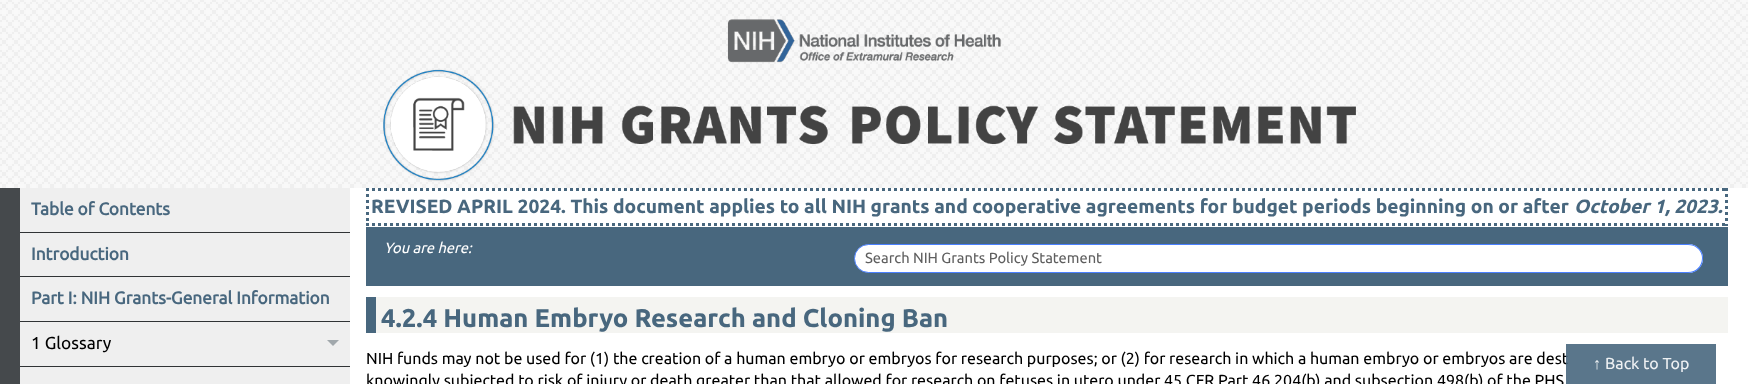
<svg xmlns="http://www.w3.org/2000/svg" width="1748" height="384">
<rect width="100%" height="100%" fill="#fff"/>
<image x="0" y="0" width="1748" height="188" href="media/1.png"/>
<image x="383" y="19" width="973" height="163" href="media/2.png"/>
<rect y="188" width="20" height="196" fill="#45494c"/>
<rect x="20" y="188" width="330" height="196" fill="#efefef"/>
<rect x="20" y="232" width="330" height="1" fill="#303335"/>
<text x="31" y="215" style="font-family:Ubuntu;font-size:17.3px;font-weight:bold;fill:#48677e">Table of Contents</text>
<rect x="20" y="276" width="330" height="1" fill="#303335"/>
<text x="31" y="260" style="font-family:Ubuntu;font-size:17.3px;font-weight:bold;fill:#48677e">Introduction</text>
<rect x="20" y="321" width="330" height="1" fill="#303335"/>
<text x="31" y="304" style="font-family:Ubuntu;font-size:17.3px;font-weight:bold;fill:#48677e">Part I: NIH Grants-General Information</text>
<rect x="20" y="366" width="330" height="1" fill="#303335"/>
<text x="31" y="349" style="font-family:Ubuntu;font-size:17.3px;fill:#000">1 Glossary</text>
<path d="M327 340h12l-6 6z" fill="#a1a8ac"/>
<path d="M366 189.5h1362" fill="none" stroke="#48677e" stroke-width="3" stroke-dasharray="3 3"/>
<path d="M1726.5 188v38" fill="none" stroke="#48677e" stroke-width="3" stroke-dasharray="3 3"/>
<path d="M366 224.5h1362" fill="none" stroke="#48677e" stroke-width="3" stroke-dasharray="3 3"/>
<path d="M367.5 188v38" fill="none" stroke="#48677e" stroke-width="3" stroke-dasharray="3 3"/>
<text x="371" y="213" style="font-family:'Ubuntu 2';font-size:19.2px;font-weight:bold;fill:#48677e">REVISED APRIL 2024. This document applies to all NIH grants and cooperative agreements for budget periods beginning on or after</text>
<text x="1574" y="213" style="font-family:Ubuntu;font-size:19.2px;font-weight:bold;font-style:italic;fill:#48677e">October 1, 2023.</text>
<rect x="366" y="227" width="1362" height="59" fill="#48677e"/>
<text x="384" y="253" style="font-family:Ubuntu;font-size:14.7px;font-style:italic;fill:#fff">You are here:</text>
<rect x="854.5" y="244.5" width="848" height="28" rx="14" fill="#fff" stroke="#4a80ff"/>
<text x="865" y="263" style="font-family:Ubuntu;font-size:14.7px;fill:#5f5f5f">Search NIH Grants Policy Statement</text>
<path d="M1647 244h41.5c8 0 14.5 6.5 14.5 14.5c0 8-6.5 14.5-14.5 14.5h-41.5z" fill="#fff"/>
<path d="M1647 244h41c9 0 15 6 15 14c0 9-6 15-15 15h-41zm0 1h41c8 0 14 6 14 13c0 8-6 14-14 14h-41z" fill="#4a80ff" fill-rule="evenodd"/>
<rect x="376" y="297" width="1352" height="36" fill="#f4f4f1"/>
<rect x="366" y="297" width="10" height="36" fill="#48677e"/>
<text x="381" y="327" style="font-family:'Ubuntu 2';font-size:25.6px;font-weight:bold;fill:#48677e">4.2.4 Human Embryo Research and Cloning Ban</text>
<text x="366" y="364" style="font-family:Ubuntu;font-size:16px;fill:#000">NIH funds may not be used for (1) the creation of a human embryo or embryos for research purposes; or (2) for research in which a human embryo or embryos are dest</text>
<text x="366" y="386" style="font-family:Ubuntu;font-size:16px;fill:#000">knowingly subjected to risk of injury or death greater than that allowed for research on fetuses in utero under 45 CFR Part 46.204(b) and subsection 498(b) of the PHS</text>
<rect x="1566" y="344" width="150" height="40" fill="#48677ee6"/>
<text x="1593" y="369" style="font-family:Liberation Sans;font-size:16px;fill:#eef1f3">↑</text>
<text x="1605" y="369" style="font-family:Ubuntu;font-size:16px;fill:#eef1f3">Back to Top</text>
</svg>
